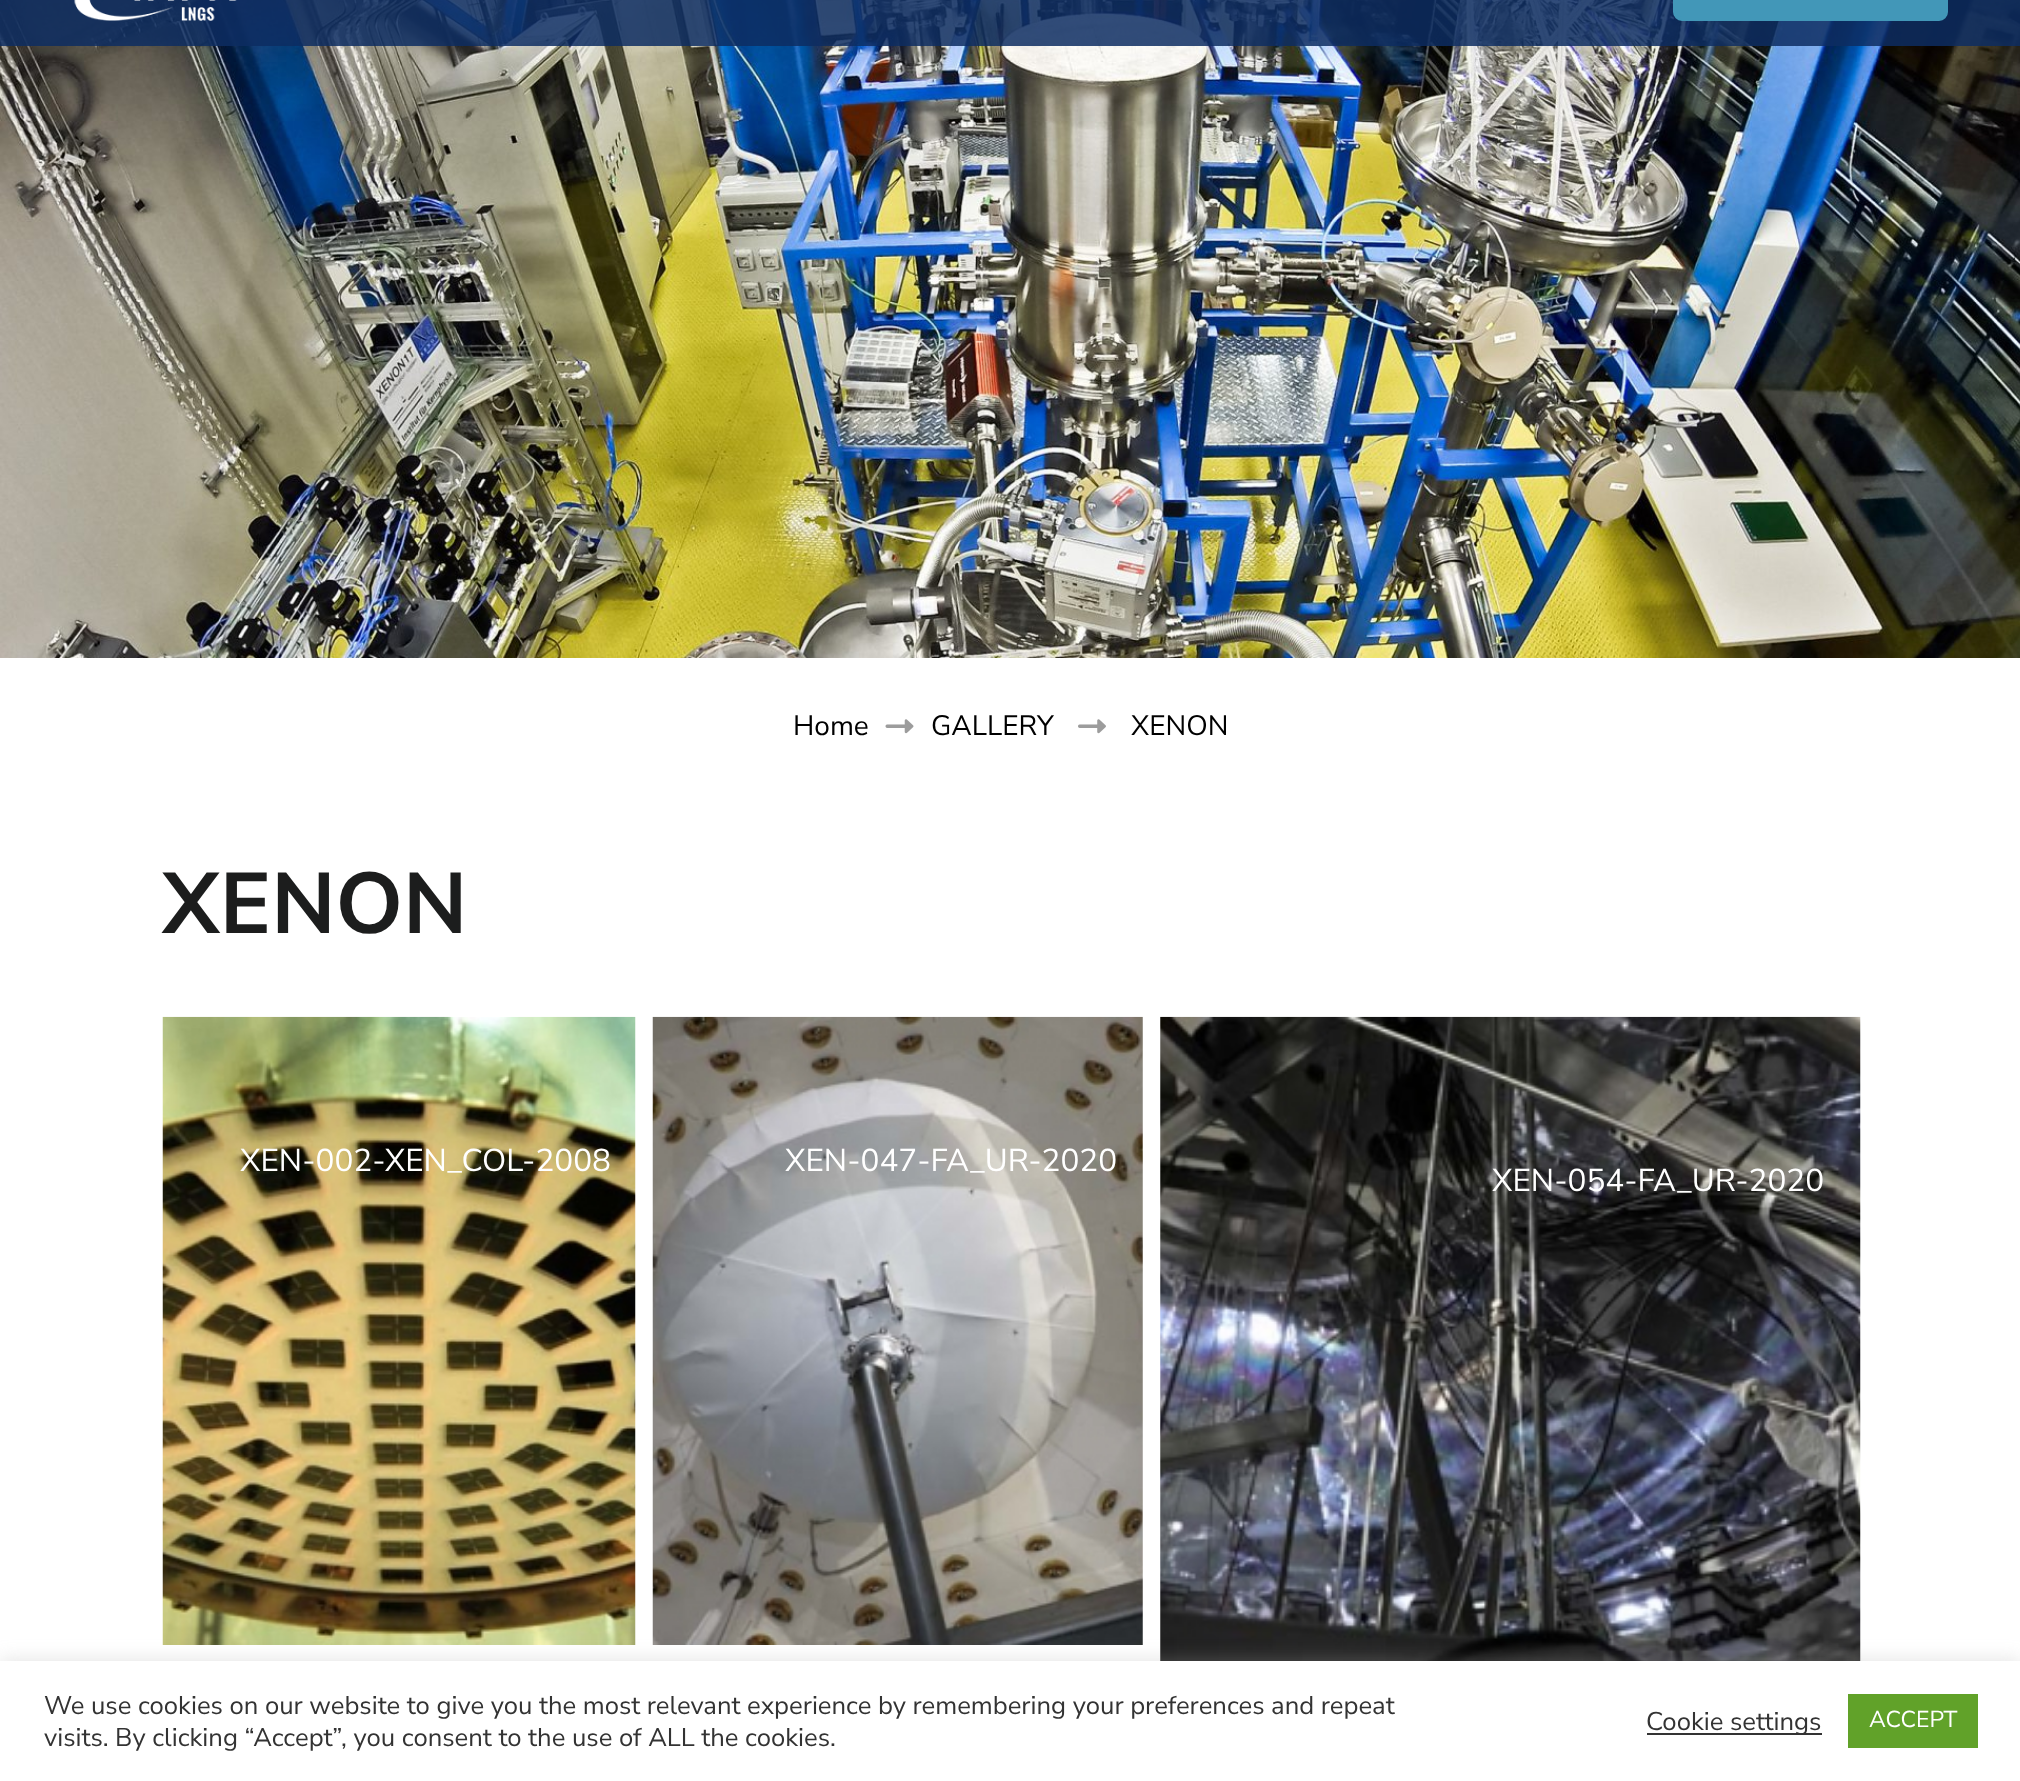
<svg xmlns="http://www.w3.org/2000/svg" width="2020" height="1781">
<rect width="100%" height="100%" fill="#fff"/>
<image x="0" y="0" width="2020" height="658" href="media/2.png"/>
<rect width="2020" height="46" fill="#0d2d62d9"/>
<image x="74" y="0" width="163" height="21" href="media/1.png"/>
<rect x="1675" y="-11" width="271" height="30" rx="7" fill="#4297b8" stroke="#4297b8" stroke-width="4"/>
<text x="793" y="735" style="font-family:Nunito Sans;font-size:28px;fill:#000">Home</text>
<image x="885" y="719" width="29" height="15" href="media/3.png"/>
<text x="931" y="735" style="font-family:Nunito Sans;font-size:28px;fill:#000">GALLERY</text>
<image x="1078" y="719" width="28" height="15" href="media/4.png"/>
<text x="1131" y="735" style="font-family:Nunito Sans;font-size:28px;fill:#000">XENON</text>
<text x="162" y="933" style="font-family:Nunito Sans;font-size:86px;font-weight:bold;fill:#1c1d1d">XENON</text>
<image x="162" y="1016" width="474" height="629" href="media/5.png"/>
<text x="240" y="1171" style="font-family:Nunito Sans;font-size:31.5px;fill:#fff">XEN-002-XEN_COL-2008</text>
<image x="652" y="1016" width="491" height="629" href="media/6.png"/>
<text x="785" y="1171" style="font-family:Nunito Sans;font-size:31.5px;fill:#fff">XEN-047-FA_UR-2020</text>
<image x="1160" y="1016" width="701" height="645" href="media/7.png"/>
<text x="1492" y="1191" style="font-family:Nunito Sans;font-size:31.5px;fill:#fff">XEN-054-FA_UR-2020</text>
<rect y="1659" width="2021" height="121" fill="#acabab4d" filter="blur(9px)"/>
<rect y="1661" width="2020" height="120" fill="#fff"/>
<text x="44" y="1714" style="font-family:Nunito Sans;font-size:25.67px;fill:#333">We use cookies on our website to give you the most relevant experience by remembering your preferences and repeat</text>
<text x="44" y="1746" style="font-family:Nunito Sans;font-size:25.67px;fill:#333">visits. By clicking “Accept”, you consent to the use of ALL the cookies.</text>
<rect x="1647" y="1733" width="175" height="2" fill="#333"/>
<text x="1646" y="1730" style="font-family:Nunito Sans;font-size:25.67px;fill:#333">Cookie settings</text>
<rect x="1848" y="1694" width="130" height="54" fill="#61a229"/>
<text x="1869" y="1727" style="font-family:Nunito Sans;font-size:23px;fill:#fff">ACCEPT</text>
</svg>
